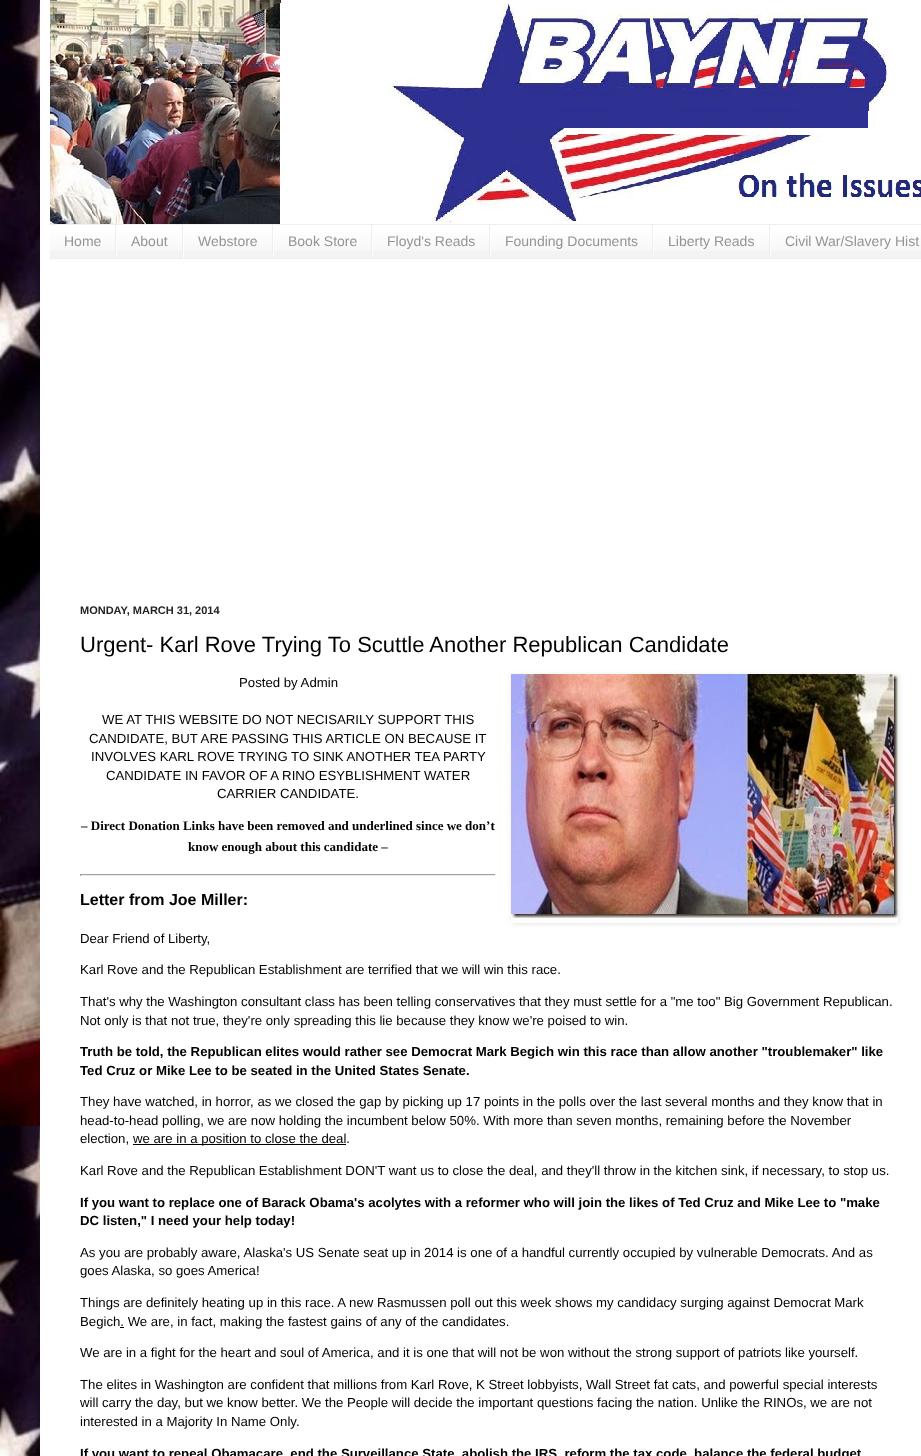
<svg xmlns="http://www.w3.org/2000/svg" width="921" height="1456">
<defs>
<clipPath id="clip1"><path d="M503 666h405v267h-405zm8 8h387v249h-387z" clip-rule="evenodd"/></clipPath>
</defs>
<rect width="100%" height="100%" fill="#fff"/>
<image x="0" y="400" width="40" height="1056" href="media/1.png"/>
<image x="0" y="0" width="40" height="400" href="media/2.png"/>
<rect x="40" y="-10" width="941" height="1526" fill="#00000026" filter="blur(20px)"/>
<rect x="40" width="881" height="1456" fill="#fff"/>
<image x="50" y="0" width="871" height="224" href="media/3.png"/>
<rect x="50" y="226" width="871" height="32" fill="#f3f3f3"/>
<image x="50" y="225" width="871" height="26" href="media/4.png"/>
<rect x="50" y="224" width="871" height="1" fill="#eee"/>
<rect x="50" y="258" width="871" height="1" fill="#eee"/>
<rect x="115" y="225" width="1" height="33" fill="#eee"/>
<text x="64" y="246" style="font-family:Liberation Sans;font-size:14px;fill:#949494">Home</text>
<rect x="182" y="225" width="1" height="33" fill="#eee"/>
<rect x="116" y="234" width="1" height="24" fill="#fff"/>
<text x="131" y="246" style="font-family:Liberation Sans;font-size:14px;fill:#949494">About</text>
<rect x="272" y="225" width="1" height="33" fill="#eee"/>
<rect x="183" y="234" width="1" height="24" fill="#fff"/>
<text x="198" y="246" style="font-family:Liberation Sans;font-size:14px;fill:#949494">Webstore</text>
<rect x="371" y="225" width="1" height="33" fill="#eee"/>
<rect x="273" y="234" width="1" height="24" fill="#fff"/>
<text x="288" y="246" style="font-family:Liberation Sans;font-size:14px;fill:#949494">Book Store</text>
<rect x="489" y="225" width="1" height="33" fill="#eee"/>
<rect x="372" y="234" width="1" height="24" fill="#fff"/>
<text x="387" y="246" style="font-family:Liberation Sans;font-size:14px;fill:#949494">Floyd's Reads</text>
<rect x="652" y="225" width="1" height="33" fill="#eee"/>
<rect x="490" y="234" width="1" height="24" fill="#fff"/>
<text x="505" y="246" style="font-family:Liberation Sans;font-size:14px;fill:#949494">Founding Documents</text>
<rect x="769" y="225" width="1" height="33" fill="#eee"/>
<rect x="653" y="234" width="1" height="24" fill="#fff"/>
<text x="668" y="246" style="font-family:Liberation Sans;font-size:14px;fill:#949494">Liberty Reads</text>
<rect x="770" y="234" width="1" height="24" fill="#fff"/>
<text x="785" y="246" style="font-family:Liberation Sans;font-size:14px;fill:#949494">Civil War/Slavery Hist</text>
<text x="80" y="614" style="font-family:Liberation Sans;font-size:11px;font-weight:bold;fill:#222">MONDAY, MARCH 31, 2014</text>
<text x="80" y="652" style="font-family:Liberation Sans;font-size:22px;fill:#000">Urgent- Karl Rove Trying To Scuttle Another Republican Candidate</text>
<text x="239" y="687" style="font-family:Liberation Sans;font-size:13.2px;fill:#000">Posted by Admin</text>
<g clip-path="url(#clip1)">
<rect x="512" y="675" width="387" height="249" fill="#0000001a" filter="blur(2.5px)"/>
</g>
<image x="511" y="674" width="387" height="244" href="media/5.png"/>
<text x="102" y="724" style="font-family:Liberation Sans;font-size:13.2px;fill:#000">WE AT THIS WEBSITE DO NOT NECISARILY SUPPORT THIS</text>
<text x="89" y="743" style="font-family:Liberation Sans;font-size:13.2px;fill:#000">CANDIDATE, BUT ARE PASSING THIS ARTICLE ON BECAUSE IT</text>
<text x="91" y="761" style="font-family:Liberation Sans;font-size:13.2px;fill:#000">INVOLVES KARL ROVE TRYING TO SINK ANOTHER TEA PARTY</text>
<text x="106" y="780" style="font-family:Liberation Sans;font-size:13.2px;fill:#000">CANDIDATE IN FAVOR OF A RINO ESYBLISHMENT WATER</text>
<text x="217" y="798" style="font-family:Liberation Sans;font-size:13.2px;fill:#000">CARRIER CANDIDATE.</text>
<text x="81" y="830" style="font-family:Liberation Serif;font-size:13px;font-weight:bold;fill:#000">– Direct Donation Links have been removed and underlined since we don’t</text>
<text x="188" y="851" style="font-family:Liberation Serif;font-size:13px;font-weight:bold;fill:#000">know enough about this candidate –</text>
<rect x="80" y="874" width="416" height="1" fill="#9f9f9f"/>
<rect x="495" y="874" width="1" height="2" fill="#eee"/>
<rect x="80" y="875" width="416" height="1" fill="#eee"/>
<rect x="80" y="874" width="1" height="2" fill="#9f9f9f"/>
<text x="80" y="905" style="font-family:Liberation Sans;font-size:16px;font-weight:bold;fill:#000">Letter from Joe Miller:</text>
<text x="80" y="943" style="font-family:Liberation Sans;font-size:13.2px;fill:#000">Dear Friend of Liberty,</text>
<text x="80" y="974" style="font-family:Liberation Sans;font-size:13.2px;fill:#000">Karl Rove and the Republican Establishment are terrified that we will win this race.</text>
<text x="80" y="1006" style="font-family:Liberation Sans;font-size:13.2px;fill:#000">That's why the Washington consultant class has been telling conservatives that they must settle for a "me too" Big Government Republican.</text>
<text x="80" y="1025" style="font-family:Liberation Sans;font-size:13.2px;fill:#000">Not only is that not true, they're only spreading this lie because they know we're poised to win.</text>
<text x="80" y="1056" style="font-family:Liberation Sans;font-size:13.2px;font-weight:bold;fill:#000">Truth be told, the Republican elites would rather see Democrat Mark Begich win this race than allow another "troublemaker" like</text>
<text x="80" y="1075" style="font-family:Liberation Sans;font-size:13.2px;font-weight:bold;fill:#000">Ted Cruz or Mike Lee to be seated in the United States Senate.</text>
<text x="80" y="1106" style="font-family:Liberation Sans;font-size:13.2px;fill:#000">They have watched, in horror, as we closed the gap by picking up 17 points in the polls over the last several months and they know that in</text>
<text x="80" y="1125" style="font-family:Liberation Sans;font-size:13.2px;fill:#000">head-to-head polling, we are now holding the incumbent below 50%. With more than seven months, remaining before the November</text>
<text x="80" y="1143" style="font-family:Liberation Sans;font-size:13.2px;fill:#000">election,</text>
<rect x="133" y="1144" width="213" height="1" fill="#000"/>
<text x="133" y="1143" style="font-family:Liberation Sans;font-size:13.2px;fill:#000">we are in a position to close the deal.</text>
<text x="80" y="1175" style="font-family:Liberation Sans;font-size:13.2px;fill:#000">Karl Rove and the Republican Establishment DON'T want us to close the deal, and they'll throw in the kitchen sink, if necessary, to stop us.</text>
<text x="80" y="1207" style="font-family:Liberation Sans;font-size:13.2px;font-weight:bold;fill:#000">If you want to replace one of Barack Obama's acolytes with a reformer who will join the likes of Ted Cruz and Mike Lee to "make</text>
<text x="80" y="1225" style="font-family:Liberation Sans;font-size:13.2px;font-weight:bold;fill:#000">DC listen," I need your help today!</text>
<text x="80" y="1257" style="font-family:Liberation Sans;font-size:13.2px;fill:#000">As you are probably aware, Alaska's US Senate seat up in 2014 is one of a handful currently occupied by vulnerable Democrats. And as</text>
<text x="80" y="1275" style="font-family:Liberation Sans;font-size:13.2px;fill:#000">goes Alaska, so goes America!</text>
<text x="80" y="1307" style="font-family:Liberation Sans;font-size:13.2px;fill:#000">Things are definitely heating up in this race. A new Rasmussen poll out this week shows my candidacy surging against Democrat Mark</text>
<text x="80" y="1326" style="font-family:Liberation Sans;font-size:13.2px;fill:#000">Begich. We are, in fact, making the fastest gains of any of the candidates.</text>
<rect x="120" y="1327" width="4" height="1" fill="#000"/>
<text x="80" y="1357" style="font-family:Liberation Sans;font-size:13.2px;fill:#000">We are in a fight for the heart and soul of America, and it is one that will not be won without the strong support of patriots like yourself.</text>
<text x="80" y="1389" style="font-family:Liberation Sans;font-size:13.2px;fill:#000">The elites in Washington are confident that millions from Karl Rove, K Street lobbyists, Wall Street fat cats, and powerful special interests</text>
<text x="80" y="1407" style="font-family:Liberation Sans;font-size:13.2px;fill:#000">will carry the day, but we know better. We the People will decide the important questions facing the nation. Unlike the RINOs, we are not</text>
<text x="80" y="1426" style="font-family:Liberation Sans;font-size:13.2px;fill:#000">interested in a Majority In Name Only.</text>
<text x="80" y="1458" style="font-family:Liberation Sans;font-size:13.2px;font-weight:bold;fill:#000">If you want to repeal Obamacare, end the Surveillance State, abolish the IRS, reform the tax code, balance the federal budget</text>
</svg>
